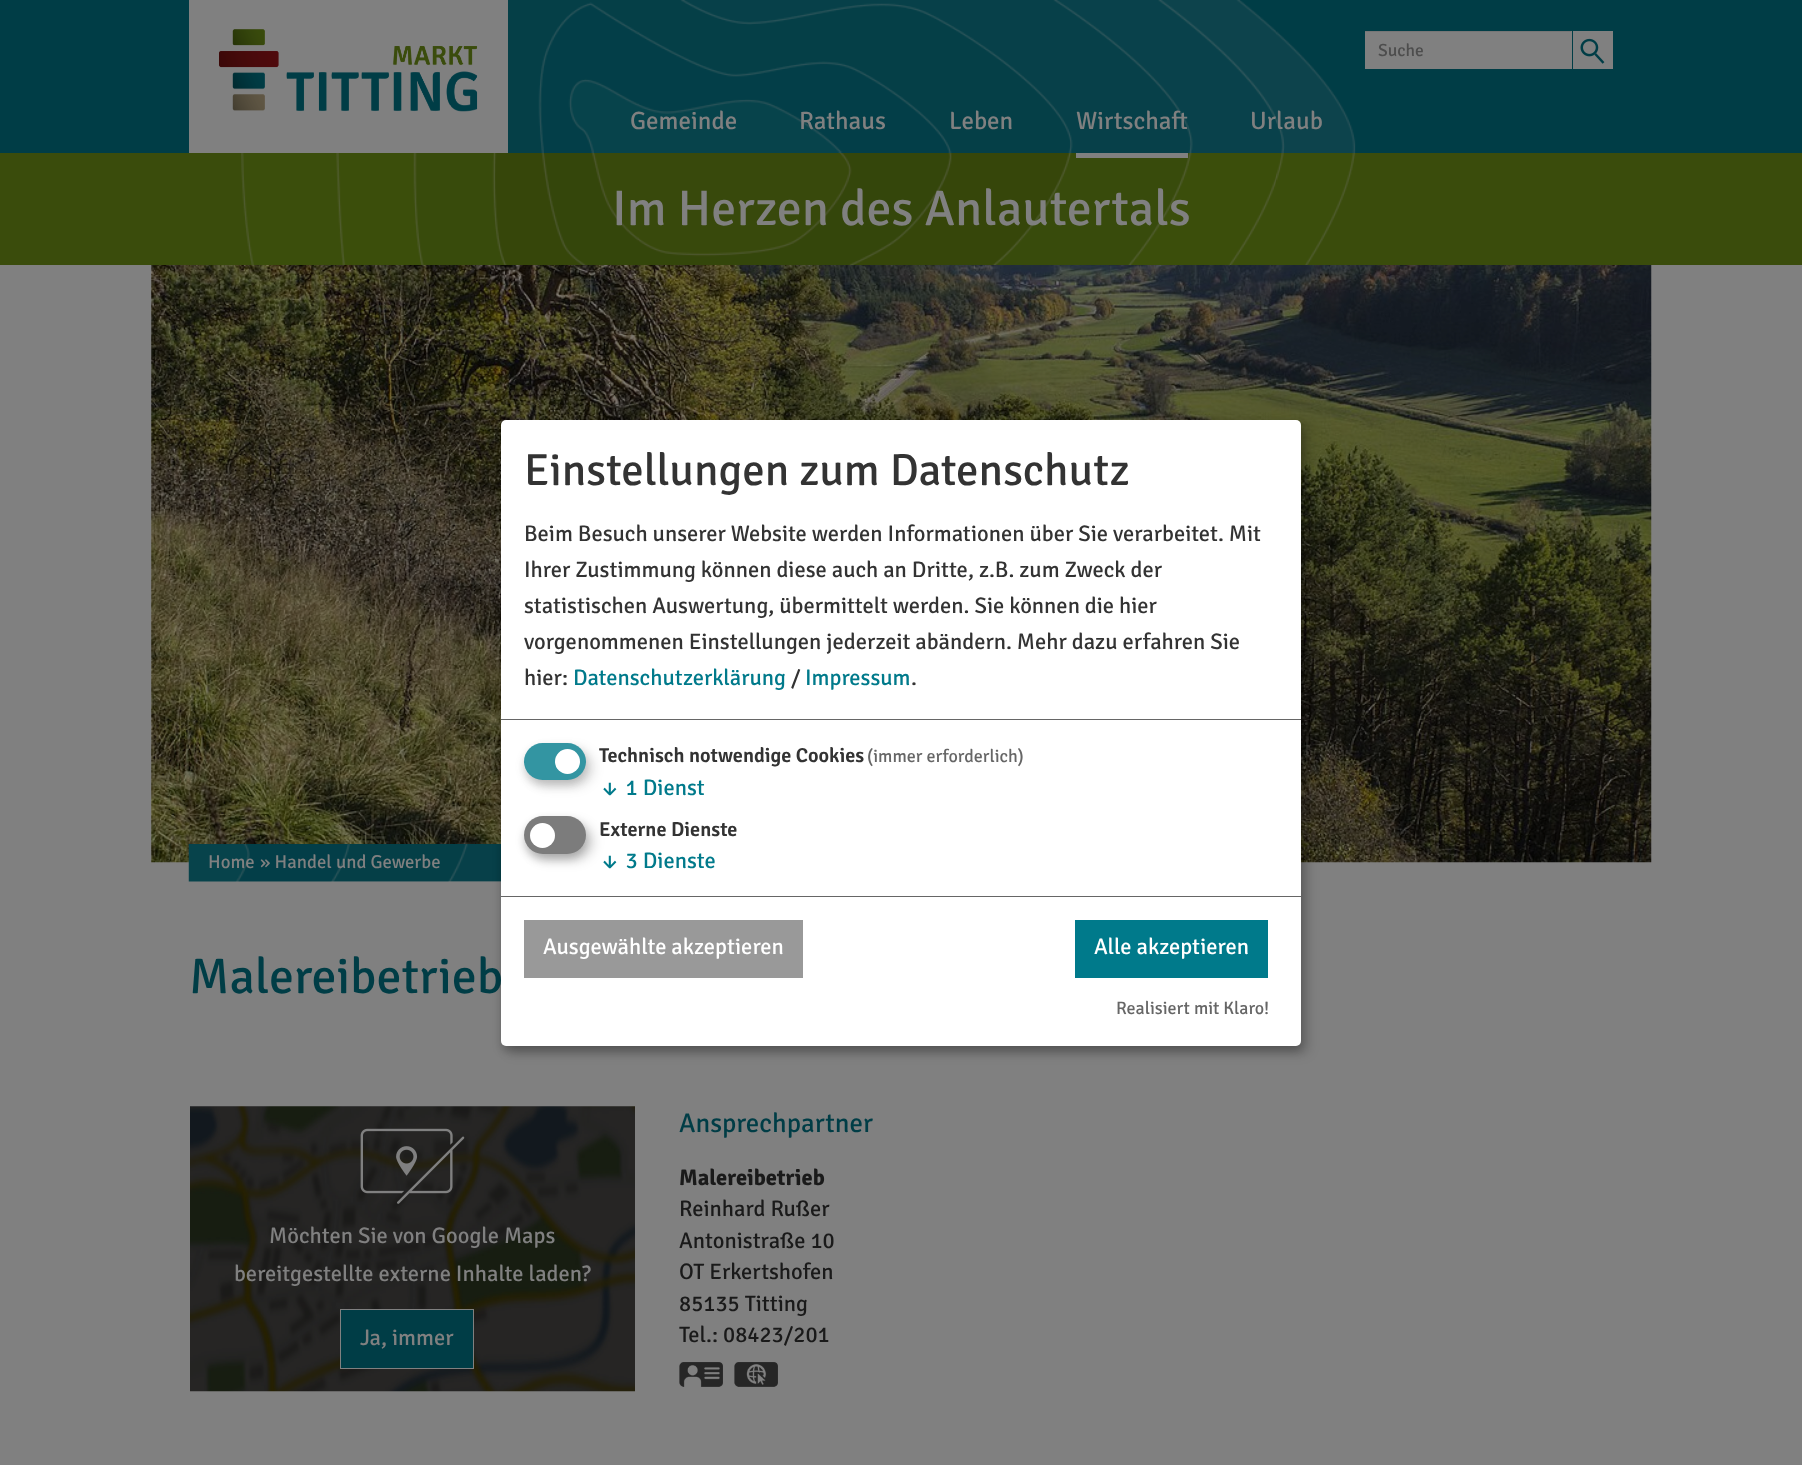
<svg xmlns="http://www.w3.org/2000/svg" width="1802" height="1465">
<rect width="100%" height="100%" fill="#808080"/>
<rect width="1802" height="153" fill="#003d46"/>
<image x="508" y="0" width="848" height="153" href="media/1.png"/>
<rect x="189" width="319" height="153" fill="#808080"/>
<image x="219" y="29" width="259" height="83" href="media/2.png"/>
<rect x="1365" y="31" width="207" height="38" fill="#808080"/>
<rect x="1365" y="31" width="206" height="1" fill="#767676"/>
<text x="1378" y="56" style="font-family:Signika;font-size:17.5px;font-weight:300;fill:#4d4d4d">Suche</text>
<rect x="1573" y="31" width="40" height="38" fill="#808080"/>
<image x="1580" y="38" width="25" height="26" href="media/3.png"/>
<text x="630" y="129" style="font-family:Signika;font-size:25px;font-weight:300;fill:#808080">Gemeinde</text>
<text x="799" y="129" style="font-family:Signika;font-size:25px;font-weight:300;fill:#808080">Rathaus</text>
<text x="949" y="129" style="font-family:Signika;font-size:25px;font-weight:300;fill:#808080">Leben</text>
<text x="1076" y="129" style="font-family:Signika;font-size:25px;font-weight:300;fill:#808080">Wirtschaft</text>
<rect y="153" width="1802" height="112" fill="#3a4c0c"/>
<image x="241" y="153" width="1115" height="112" href="media/4.png"/>
<rect x="1076" y="153" width="112" height="5" fill="#808080"/>
<text x="1250" y="129" style="font-family:Signika;font-size:25px;font-weight:300;fill:#808080">Urlaub</text>
<text x="612" y="225" style="font-family:Signika;font-size:50px;font-weight:300;fill:#808080">Im Herzen des Anlautertals</text>
<image x="151" y="265" width="1501" height="598" href="media/5.png"/>
<rect x="189" y="844" width="312" height="37" fill="#003d46"/>
<image x="188" y="844" width="313" height="38" href="media/6.png"/>
<text x="208" y="868" style="font-family:Signika;font-size:18.75px;font-weight:300;fill:#808080">Home</text>
<text x="260" y="868" style="font-family:Signika;font-size:18.75px;font-weight:300;fill:#808080">» Handel und Gewerbe</text>
<text x="189" y="993" style="font-family:Signika;font-size:50px;font-weight:300;fill:#003d46">Malereibetrieb</text>
<image x="190" y="1106" width="445" height="286" href="media/7.png"/>
<image x="360" y="1128" width="105" height="76" href="media/8.png"/>
<text x="269" y="1243" style="font-family:Signika;font-size:22.5px;font-weight:300;fill:#808080">Möchten Sie von Google Maps</text>
<text x="234" y="1281" style="font-family:Signika;font-size:22.5px;font-weight:300;fill:#808080">bereitgestellte externe Inhalte laden?</text>
<rect x="340.5" y="1309.5" width="133" height="59" fill="#003d46" stroke="#808080"/>
<text x="360" y="1345" style="font-family:Signika;font-size:22.5px;font-weight:300;fill:#808080">Ja, immer</text>
<text x="679" y="1132" style="font-family:Signika;font-size:27px;font-weight:300;fill:#003d46">Ansprechpartner</text>
<text x="679" y="1185" style="font-family:'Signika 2';font-size:22.5px;font-weight:300;fill:#1a1a1a">Malereibetrieb</text>
<text x="679" y="1216" style="font-family:Signika;font-size:22.5px;font-weight:300;fill:#1a1a1a">Reinhard Rußer</text>
<text x="679" y="1248" style="font-family:Signika;font-size:22.5px;font-weight:300;fill:#1a1a1a">Antonistraße 10</text>
<text x="679" y="1279" style="font-family:Signika;font-size:22.5px;font-weight:300;fill:#1a1a1a">OT Erkertshofen</text>
<text x="679" y="1311" style="font-family:Signika;font-size:22.5px;font-weight:300;fill:#1a1a1a">85135 Titting</text>
<text x="679" y="1342" style="font-family:Signika;font-size:22.5px;font-weight:300;fill:#1a1a1a">Tel.: 08423/201</text>
<image x="679" y="1362" width="44" height="25" href="media/9.png"/>
<image x="734" y="1362" width="44" height="25" href="media/10.png"/>
<rect x="508" y="426" width="800" height="627" rx="5" fill="#00000030" filter="blur(6px)"/>
<rect x="501" y="425" width="800" height="626" rx="5" fill="#00000033" filter="blur(4px)"/>
<rect x="501" y="420" width="800" height="626" rx="5" fill="#fff"/>
<rect x="501" y="719" width="800" height="1" fill="#666"/>
<text x="524" y="485" style="font-family:Signika;font-size:45px;font-weight:300;fill:#333">Einstellungen zum Datenschutz</text>
<text x="524" y="541" style="font-family:Signika;font-size:22.5px;font-weight:300;fill:#333">Beim Besuch unserer Website werden Informationen über Sie verarbeitet. Mit</text>
<text x="524" y="577" style="font-family:Signika;font-size:22.5px;font-weight:300;fill:#333">Ihrer Zustimmung können diese auch an Dritte, z.B. zum Zweck der</text>
<text x="524" y="613" style="font-family:Signika;font-size:22.5px;font-weight:300;fill:#333">statistischen Auswertung, übermittelt werden. Sie können die hier</text>
<text x="524" y="649" style="font-family:Signika;font-size:22.5px;font-weight:300;fill:#333">vorgenommenen Einstellungen jederzeit abändern. Mehr dazu erfahren Sie</text>
<text x="524" y="685" style="font-family:Signika;font-size:22.5px;font-weight:300;fill:#333">hier:</text>
<text x="573" y="685" style="font-family:Signika;font-size:22.5px;font-weight:300;fill:#007a8b">Datenschutzerklärung</text>
<text x="791" y="685" style="font-family:Signika;font-size:22.5px;font-weight:300;fill:#333">/</text>
<text x="805" y="685" style="font-family:Signika;font-size:22.5px;font-weight:300;fill:#007a8b">Impressum</text>
<text x="911" y="685" style="font-family:Signika;font-size:22.5px;font-weight:300;fill:#333">.</text>
<rect x="530" y="749" width="63" height="37" rx="18.5" fill="#00000026" filter="blur(6px)"/>
<rect x="524" y="748" width="62" height="37" rx="18.5" fill="#33333333" filter="blur(4px)"/>
<rect x="524" y="743" width="62" height="37" rx="18.5" fill="#3395a2"/>
<circle cx="567.5" cy="761.5" r="12.5" fill="#fff"/>
<text x="599" y="762" style="font-family:Signika;font-size:20.25px;font-weight:600;fill:#333">Technisch notwendige Cookies</text>
<text x="867" y="762" style="font-family:Signika;font-size:18px;font-weight:300;fill:#666">(immer erforderlich)</text>
<text x="599" y="795" style="font-family:Signika;font-size:22.5px;font-weight:300;fill:#007a8b">↓ 1 Dienst</text>
<rect x="530" y="823" width="63" height="37" rx="18.5" fill="#00000030" filter="blur(6px)"/>
<rect x="524" y="821" width="62" height="38" rx="19" fill="#00000033" filter="blur(4px)"/>
<rect x="524" y="816" width="62" height="38" rx="19" fill="#7c7c7c"/>
<circle cx="542.5" cy="835.5" r="12.5" fill="#fff"/>
<text x="599" y="836" style="font-family:Signika;font-size:20.25px;font-weight:600;fill:#333">Externe Dienste</text>
<text x="599" y="868" style="font-family:Signika;font-size:22.5px;font-weight:300;fill:#007a8b">↓ 3 Dienste</text>
<rect x="501" y="896" width="800" height="1" fill="#666"/>
<rect x="524" y="920" width="279" height="58" fill="#999"/>
<text x="543" y="954" style="font-family:Signika;font-size:22.5px;font-weight:300;fill:#fff">Ausgewählte akzeptieren</text>
<rect x="1075" y="920" width="193" height="58" fill="#007a8b"/>
<text x="1094" y="954" style="font-family:Signika;font-size:22.5px;font-weight:300;fill:#fff">Alle akzeptieren</text>
<text x="1116" y="1014" style="font-family:Signika;font-size:18px;font-weight:300;fill:#666">Realisiert mit Klaro!</text>
</svg>
